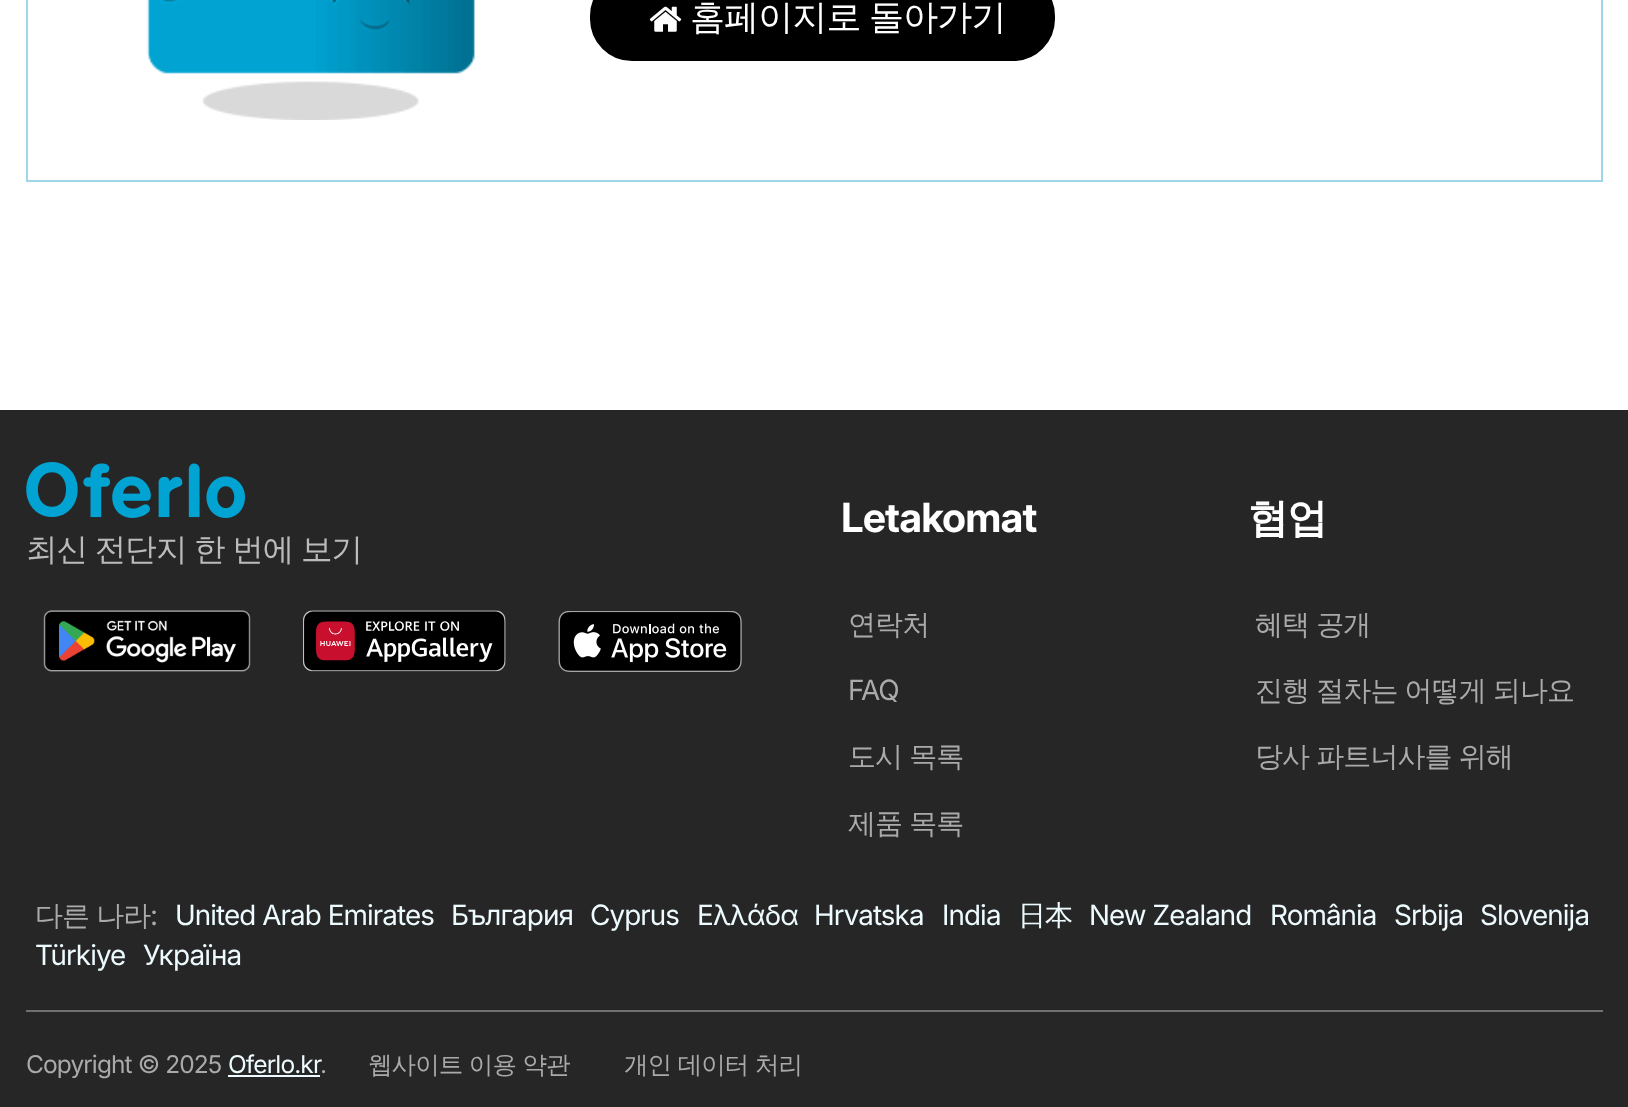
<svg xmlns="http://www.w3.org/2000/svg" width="1628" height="1107">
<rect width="100%" height="100%" fill="#fff"/>
<rect x="27" y="-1" width="1575" height="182" fill="none" stroke="#9fd7e7" stroke-width="2"/>
<image x="146" y="0" width="329" height="120" href="media/1.png"/>
<rect x="591" y="-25" width="463" height="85" rx="41" fill="#000" stroke="#000" stroke-width="2"/>
<image x="649" y="6" width="33" height="26" href="media/2.png"/>
<text x="690" y="29" word-spacing="-1" style="font-family:WenQuanYi Zen Hei;font-size:35px;font-weight:500;letter-spacing:-0.9px;fill:#fff">홈페이지로 돌아가기</text>
<rect y="410" width="1628" height="697" fill="#262626"/>
<image x="26" y="462" width="219" height="56" href="media/3.png"/>
<text x="26" y="560" word-spacing="-1" style="font-family:WenQuanYi Zen Hei;font-size:31.5px;font-weight:500;letter-spacing:-0.9px;fill:#bbb">최신 전단지 한 번에 보기</text>
<image x="43" y="610" width="208" height="62" href="media/4.png"/>
<image x="303" y="610" width="203" height="62" href="media/5.png"/>
<image x="558" y="611" width="184" height="61" href="media/6.png"/>
<text x="841" y="532" style="font-family:Inter;font-size:40.25px;font-weight:bold;letter-spacing:-0.9px;fill:#fff">Letakomat</text>
<text x="848" y="634" style="font-family:WenQuanYi Zen Hei;font-size:28px;font-weight:500;letter-spacing:-0.9px;fill:#aaa">연락처</text>
<text x="848" y="700" style="font-family:'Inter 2';font-size:28px;letter-spacing:-0.9px;fill:#aaa">FAQ</text>
<text x="848" y="766" word-spacing="-0.5" style="font-family:WenQuanYi Zen Hei;font-size:28px;font-weight:500;letter-spacing:-0.9px;fill:#aaa">도시 목록</text>
<text x="848" y="833" word-spacing="-0.5" style="font-family:WenQuanYi Zen Hei;font-size:28px;font-weight:500;letter-spacing:-0.9px;fill:#aaa">제품 목록</text>
<text x="1248" y="532" style="font-family:WenQuanYi Zen Hei;font-size:40.25px;font-weight:bold;letter-spacing:-0.9px;fill:#fff">협업</text>
<text x="1255" y="634" word-spacing="-0.5" style="font-family:WenQuanYi Zen Hei;font-size:28px;font-weight:500;letter-spacing:-0.9px;fill:#aaa">혜택 공개</text>
<text x="1255" y="700" word-spacing="-0.5" style="font-family:WenQuanYi Zen Hei;font-size:28px;font-weight:500;letter-spacing:-0.9px;fill:#aaa">진행 절차는 어떻게 되나요</text>
<text x="1255" y="766" word-spacing="-0.5" style="font-family:WenQuanYi Zen Hei;font-size:28px;font-weight:500;letter-spacing:-0.9px;fill:#aaa">당사 파트너사를 위해</text>
<text x="35" y="925" word-spacing="-0.5" style="font-family:WenQuanYi Zen Hei;font-size:28px;font-weight:500;letter-spacing:-0.9px;fill:#aaa">다른 나라</text>
<text x="150" y="925" style="font-family:Inter;font-size:28px;letter-spacing:-0.9px;fill:#aaa">:</text>
<text x="175" y="925" style="font-family:'Inter 2';font-size:28px;letter-spacing:-0.9px;fill:#edfbff">United Arab Emirates</text>
<text x="451" y="925" style="font-family:Inter;font-size:28px;letter-spacing:-0.9px;fill:#edfbff">България</text>
<text x="590" y="925" style="font-family:'Inter 2';font-size:28px;letter-spacing:-0.9px;fill:#edfbff">Cyprus</text>
<text x="697" y="925" style="font-family:Inter;font-size:28px;letter-spacing:-0.9px;fill:#edfbff">Ελλάδα</text>
<text x="814" y="925" style="font-family:'Inter 2';font-size:28px;letter-spacing:-0.9px;fill:#edfbff">Hrvatska</text>
<text x="942" y="925" style="font-family:'Inter 2';font-size:28px;letter-spacing:-0.9px;fill:#edfbff">India</text>
<text x="1018" y="925" style="font-family:WenQuanYi Zen Hei;font-size:28px;font-weight:500;letter-spacing:-0.9px;fill:#edfbff">日本</text>
<text x="1089" y="925" style="font-family:'Inter 2';font-size:28px;letter-spacing:-0.9px;fill:#edfbff">New Zealand</text>
<text x="1270" y="925" style="font-family:'Inter 2';font-size:28px;letter-spacing:-0.9px;fill:#edfbff">România</text>
<text x="1394" y="925" style="font-family:'Inter 2';font-size:28px;letter-spacing:-0.9px;fill:#edfbff">Srbija</text>
<text x="1480" y="925" style="font-family:'Inter 2';font-size:28px;letter-spacing:-0.9px;fill:#edfbff">Slovenija</text>
<text x="35" y="965" style="font-family:'Inter 2';font-size:28px;letter-spacing:-0.9px;fill:#edfbff">Türkiye</text>
<text x="143" y="965" style="font-family:Inter;font-size:28px;letter-spacing:-0.9px;fill:#edfbff">Україна</text>
<rect x="26" y="1010" width="1577" height="2" fill="#707070"/>
<text x="26" y="1073" style="font-family:Inter;font-size:24.5px;letter-spacing:-0.9px;fill:#aaa">Copyright © 2025</text>
<text x="228" y="1073" style="font-family:Inter;font-size:24.5px;letter-spacing:-0.9px;fill:#edfbff">Oferlo.kr</text>
<rect x="228" y="1075" width="92" height="2" fill="#edfbff"/>
<text x="320" y="1073" style="font-family:Inter;font-size:24.5px;letter-spacing:-0.9px;fill:#aaa">.</text>
<text x="368" y="1073" style="font-family:WenQuanYi Zen Hei;font-size:24.5px;font-weight:500;letter-spacing:-0.9px;fill:#aaa">웹사이트 이용 약관</text>
<text x="624" y="1073" style="font-family:WenQuanYi Zen Hei;font-size:24.5px;font-weight:500;letter-spacing:-0.9px;fill:#aaa">개인 데이터 처리</text>
</svg>
